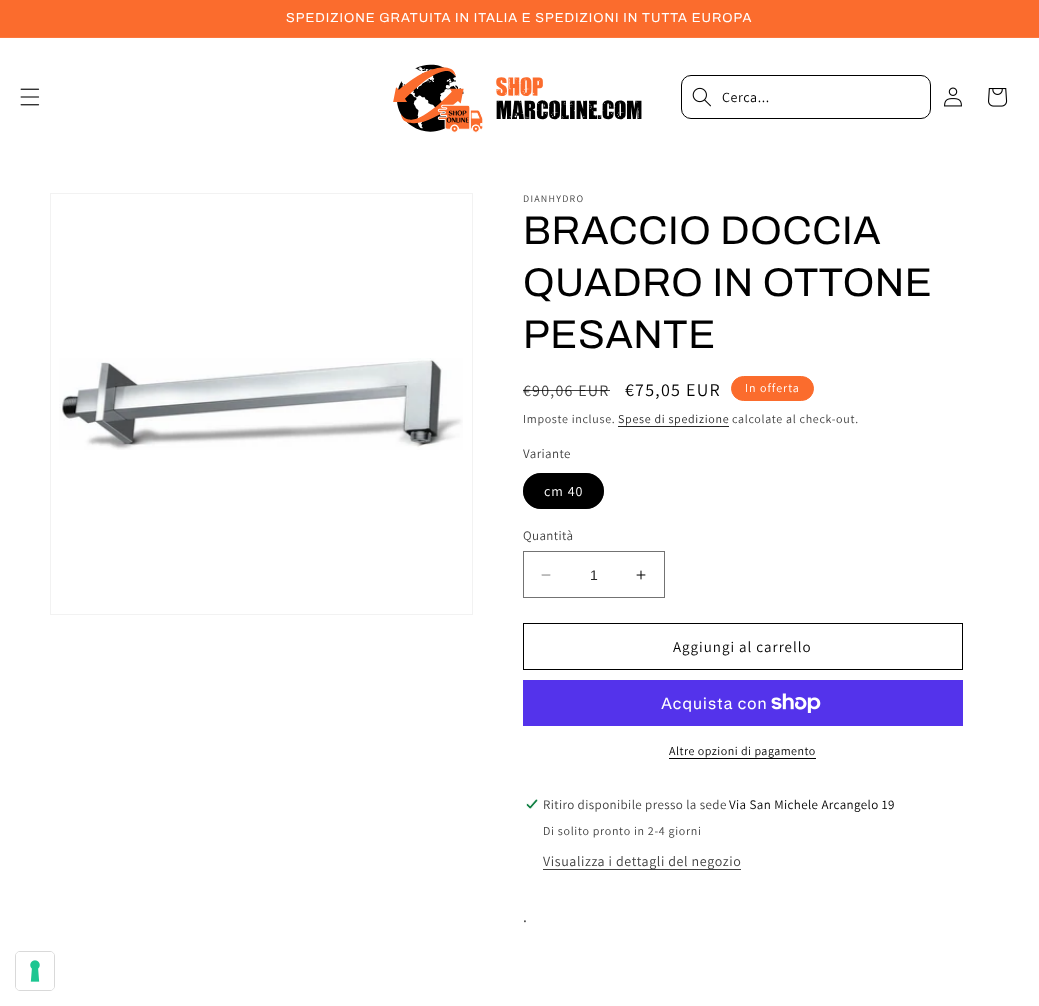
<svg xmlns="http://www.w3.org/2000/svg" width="1039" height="1006">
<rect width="100%" height="100%" fill="#fff"/>
<rect width="1039" height="37" fill="#fb6c2d"/>
<rect y="37" width="1039" height="1" fill="#fb783e"/>
<text x="286" y="22" style="font-family:Archivo;font-size:13px;letter-spacing:1px;fill:#fff">SPEDIZIONE GRATUITA IN ITALIA E SPEDIZIONI IN TUTTA EUROPA</text>
<image x="20" y="88" width="20" height="18" href="media/1.png"/>
<image x="393" y="64" width="249" height="69" href="media/2.png"/>
<rect x="681.5" y="75.5" width="249" height="43" rx="9.5" fill="none" stroke="#000"/>
<image x="692" y="87" width="19" height="20" href="media/3.png"/>
<text x="722" y="102" style="font-family:Assistant;font-size:14px;letter-spacing:0.6px;fill:#000">Cerca...</text>
<image x="944" y="87" width="18" height="20" href="media/4.png"/>
<image x="988" y="88" width="20" height="19" href="media/5.png"/>
<rect x="50.5" y="193.5" width="422" height="421" fill="none" stroke="#f2f2f2"/>
<image x="59" y="358" width="404" height="92" href="media/6.png"/>
<text x="523" y="202" style="font-family:Assistant;font-size:10px;letter-spacing:1.25px;fill:#404040">DIANHYDRO</text>
<text x="523" y="244" style="font-family:Archivo;font-size:40px;letter-spacing:0.6px;fill:#000">BRACCIO DOCCIA</text>
<text x="523" y="296" style="font-family:Archivo;font-size:40px;letter-spacing:0.6px;fill:#000">QUADRO IN OTTONE</text>
<text x="523" y="348" style="font-family:Archivo;font-size:40px;letter-spacing:0.6px;fill:#000">PESANTE</text>
<text x="523" y="396" style="font-family:Assistant;font-size:16px;letter-spacing:1.25px;fill:#404040">€90,06 EUR</text>
<rect x="523" y="390" width="87" height="1" fill="#000000bf"/>
<text x="625" y="396" style="font-family:Assistant;font-size:18px;letter-spacing:1.25px;fill:#000">€75,05 EUR</text>
<rect x="731.5" y="376.5" width="82" height="24" rx="12" fill="#fb6c2d" stroke="#fb6c2d"/>
<text x="745" y="392" style="font-family:Assistant;font-size:12px;letter-spacing:1px;fill:#fff">In offerta</text>
<text x="523" y="423" style="font-family:Assistant;font-size:12px;letter-spacing:0.7px;fill:#404040">Imposte incluse.</text>
<text x="618" y="423" style="font-family:Assistant;font-size:12px;letter-spacing:0.7px;fill:#262626">Spese di spedizione</text>
<rect x="618" y="426" width="111" height="1" fill="#262626"/>
<text x="732" y="423" style="font-family:Assistant;font-size:12px;letter-spacing:0.7px;fill:#404040">calcolate al check-out.</text>
<text x="523" y="458" style="font-family:Assistant;font-size:13px;letter-spacing:0.4px;fill:#404040">Variante</text>
<rect x="523" y="473" width="81" height="36" rx="18" fill="#000"/>
<rect x="523.5" y="473.5" width="80" height="35" rx="17.5" fill="none" stroke="#0000008c"/>
<text x="544" y="496" style="font-family:Assistant;font-size:14px;letter-spacing:1px;fill:#fff">cm 40</text>
<text x="523" y="540" style="font-family:Assistant;font-size:13px;letter-spacing:0.4px;fill:#404040">Quantità</text>
<image x="541" y="574" width="10" height="2" href="media/7.png"/>
<image x="636" y="570" width="10" height="10" href="media/8.png"/>
<rect x="523.5" y="551.5" width="141" height="46" fill="none" stroke="#737373"/>
<text x="590" y="580" style="font-family:Liberation Sans;font-size:14px;fill:#262626">1</text>
<rect x="523.5" y="623.5" width="439" height="46" fill="none" stroke="#000"/>
<text x="673" y="652" style="font-family:Assistant;font-size:15px;letter-spacing:1px;fill:#000">Aggiungi al carrello</text>
<rect x="523" y="680" width="440" height="46" fill="#5433eb"/>
<text x="661" y="709" style="font-family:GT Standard;font-size:16px;letter-spacing:0.6px;fill:#fff">Acquista con</text>
<image x="771" y="693" width="50" height="20" href="media/9.png"/>
<text x="669" y="755" style="font-family:Assistant;font-size:12px;letter-spacing:0.5px;fill:#000">Altre opzioni di pagamento</text>
<rect x="669" y="758" width="147" height="1" fill="#000"/>
<image x="526" y="799" width="12" height="10" href="media/10.png"/>
<text x="543" y="809" style="font-family:Assistant;font-size:13px;letter-spacing:0.4px;fill:#404040">Ritiro disponibile presso la sede</text>
<text x="729" y="809" style="font-family:Assistant;font-size:13px;letter-spacing:0.4px;fill:#000">Via San Michele Arcangelo 19</text>
<text x="543" y="835" style="font-family:Assistant;font-size:12px;letter-spacing:0.7px;fill:#404040">Di solito pronto in 2-4 giorni</text>
<rect x="543" y="869" width="198" height="1" fill="#404040"/>
<text x="543" y="866" style="font-family:Assistant;font-size:14px;letter-spacing:0.6px;fill:#404040">Visualizza i dettagli del negozio</text>
<text x="523" y="922" style="font-family:Assistant;font-size:16px;letter-spacing:0.6px;fill:#404040">.</text>
<rect x="15.5" y="951.5" width="39" height="39" rx="4.5" fill="none" stroke="#d9d9d9"/>
<rect x="16" y="952" width="38" height="38" rx="4" fill="#fff"/>
<image x="30" y="960" width="10" height="22" href="media/11.png"/>
</svg>
